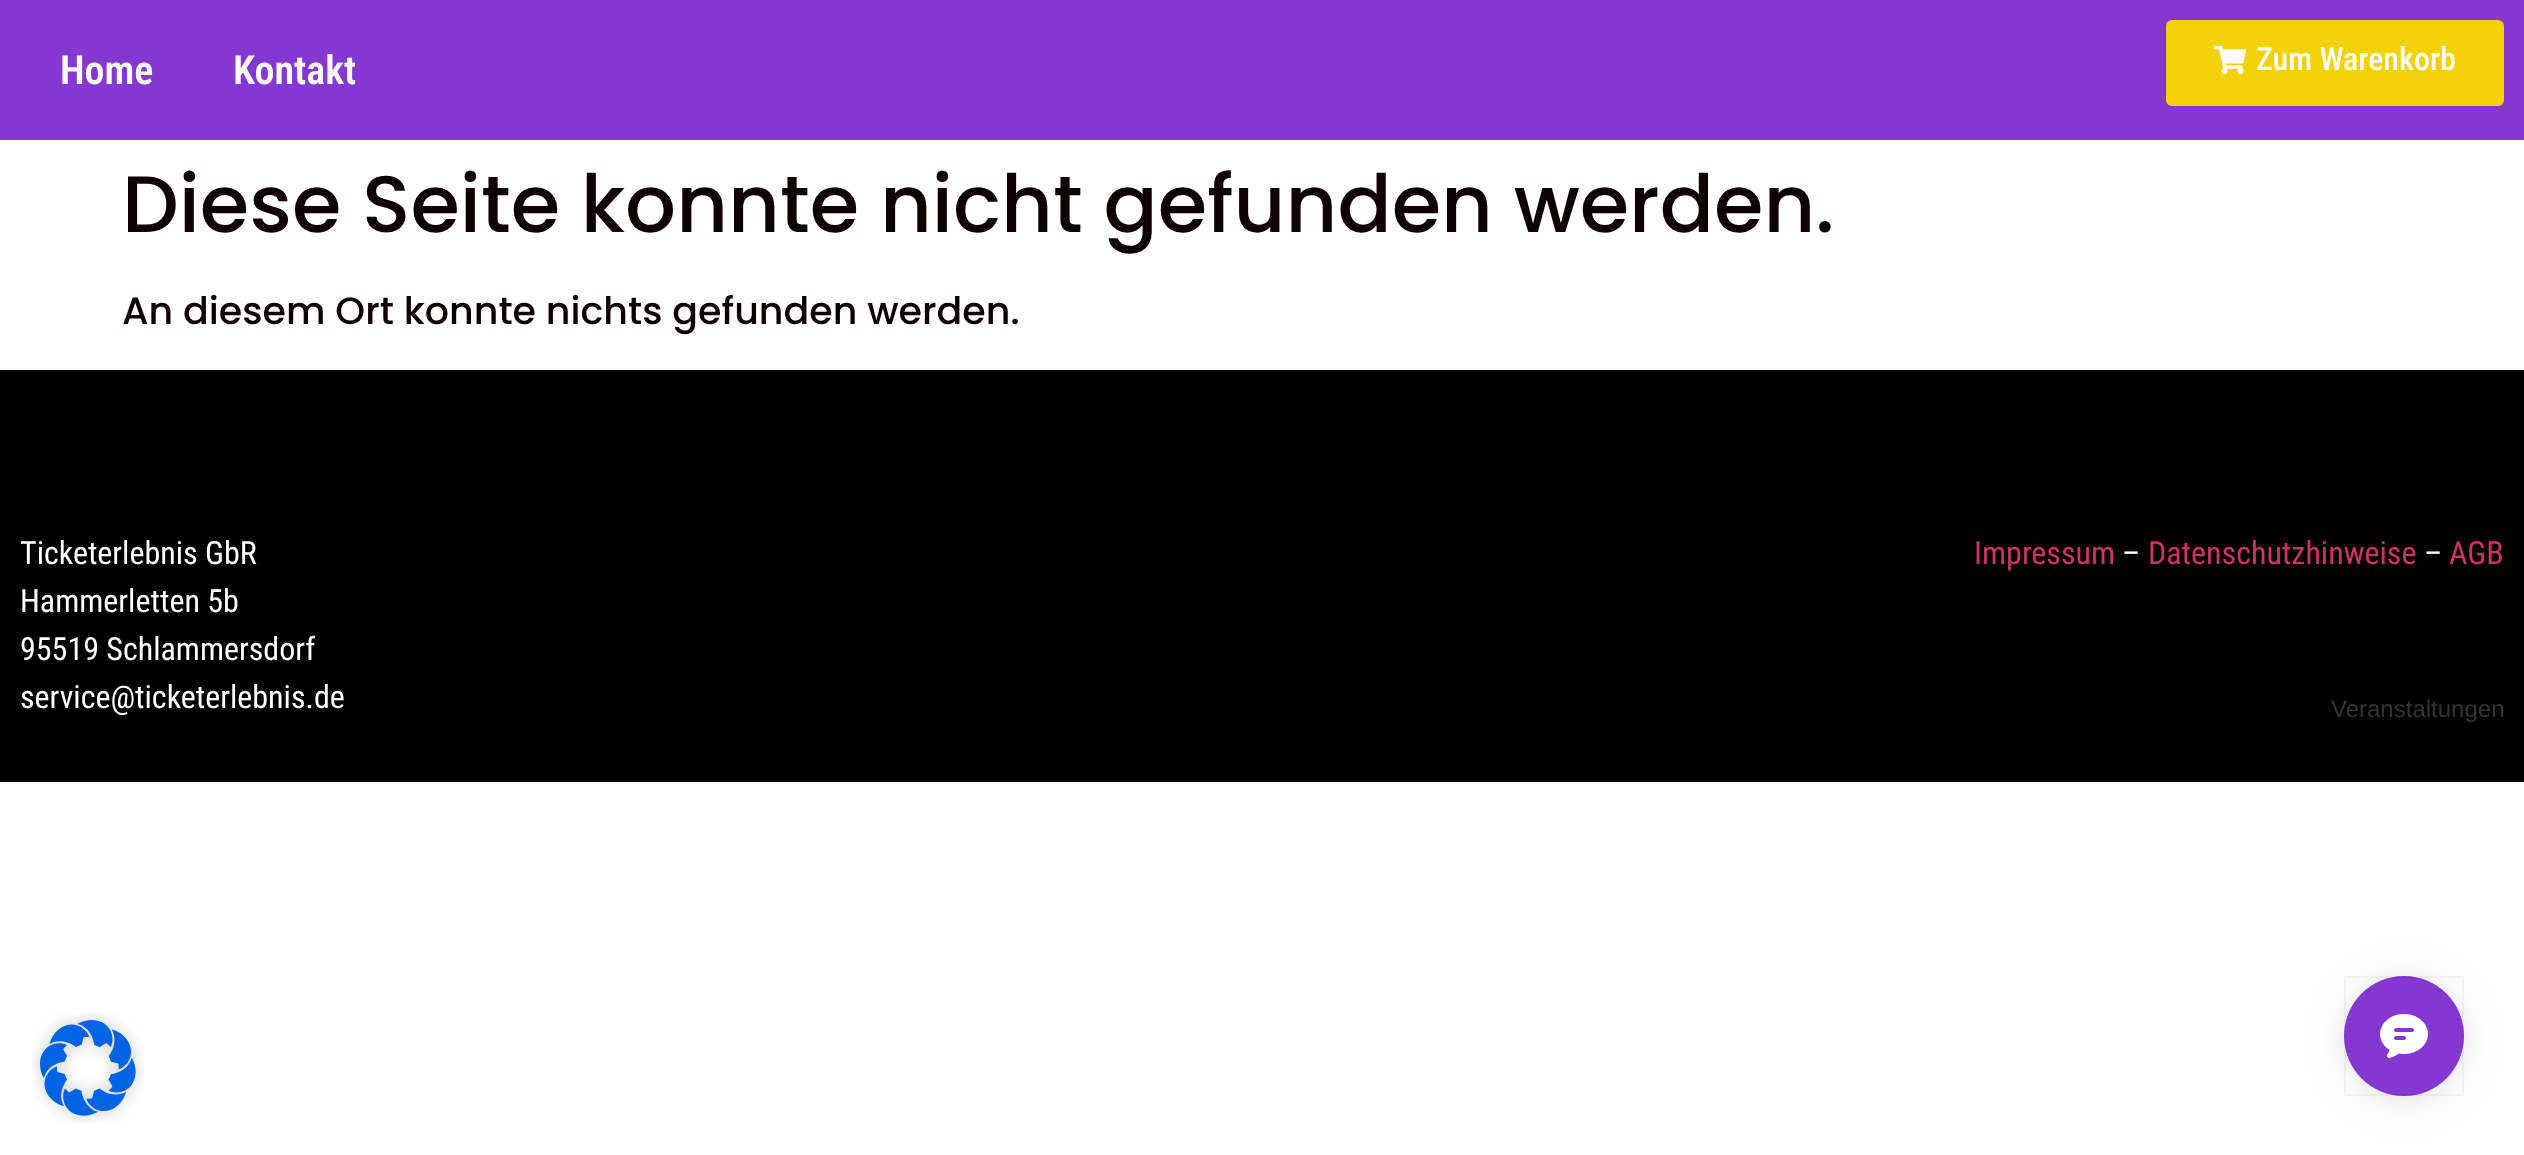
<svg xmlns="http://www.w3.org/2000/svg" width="2524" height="1155">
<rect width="100%" height="100%" fill="#fff"/>
<rect width="2524" height="140" fill="#8437d1"/>
<text x="60" y="84" style="font-family:Roboto Condensed;font-size:40px;font-weight:600;fill:#f9f9f9">Home</text>
<text x="233" y="84" style="font-family:Roboto Condensed;font-size:40px;font-weight:600;fill:#f9f9f9">Kontakt</text>
<rect x="2166" y="20" width="338" height="86" rx="6" fill="#f2d107"/>
<image x="2214" y="45" width="32" height="30" href="media/1.png"/>
<text x="2256" y="70" style="font-family:Roboto Condensed;font-size:32px;font-weight:500;fill:#fff">Zum Warenkorb</text>
<text x="122" y="232" style="font-family:Poppins;font-size:80px;font-weight:500;fill:#0e0000">Diese Seite konnte nicht gefunden werden.</text>
<text x="122" y="324" style="font-family:Poppins;font-size:38px;font-weight:500;fill:#0e0000">An diesem Ort konnte nichts gefunden werden.</text>
<rect y="370" width="2524" height="412" fill="#000"/>
<text x="20" y="564" style="font-family:Roboto Condensed;font-size:32px;fill:#fff">Ticketerlebnis GbR</text>
<text x="20" y="612" style="font-family:Roboto Condensed;font-size:32px;fill:#fff">Hammerletten 5b</text>
<text x="20" y="660" style="font-family:Roboto Condensed;font-size:32px;fill:#fff">95519 Schlammersdorf</text>
<text x="20" y="708" style="font-family:Roboto Condensed;font-size:32px;fill:#fff">service@ticketerlebnis.de</text>
<text x="1974" y="564" style="font-family:Roboto Condensed;font-size:32px;fill:#c36">Impressum</text>
<text x="2122" y="564" style="font-family:Roboto Condensed;font-size:32px;fill:#fff">–</text>
<text x="2148" y="564" style="font-family:Roboto Condensed;font-size:32px;fill:#c36">Datenschutzhinweise</text>
<text x="2424" y="564" style="font-family:Roboto Condensed;font-size:32px;fill:#fff">–</text>
<text x="2449" y="564" style="font-family:Roboto Condensed;font-size:32px;fill:#c36">AGB</text>
<text x="2331" y="717" style="font-family:Liberation Sans;font-size:24px;fill:#333">Veranstaltungen</text>
<image x="32" y="1012" width="112" height="112" href="media/2.png"/>
<rect x="2344" y="980" width="120" height="120" rx="60" fill="#00000014" filter="blur(24px)"/>
<rect x="2344" y="978" width="120" height="120" rx="60" fill="#0000000f" filter="blur(6px)"/>
<circle cx="2404" cy="1036" r="60" fill="#8437d1"/>
<rect x="2345" y="977" width="118" height="118" fill="none" stroke="#0000000a" stroke-width="2"/>
<image x="2380" y="1014" width="48" height="44" href="media/3.png"/>
</svg>
